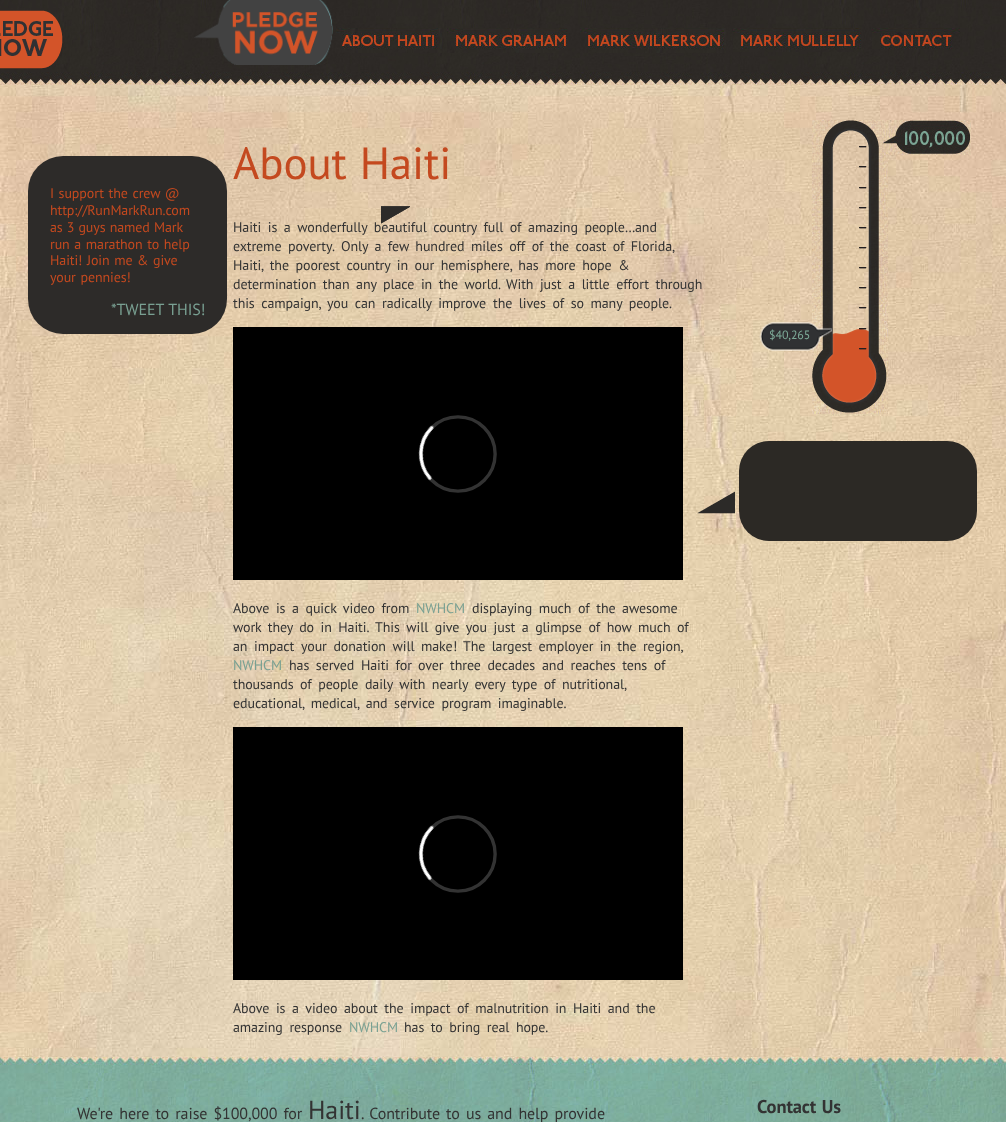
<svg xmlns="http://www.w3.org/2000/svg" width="1006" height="1122">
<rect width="100%" height="100%" fill="#fff"/>
<image x="0" y="85" width="1006" height="972" href="media/1.png"/>
<image x="0" y="0" width="1006" height="85" href="media/2.png"/>
<image x="0" y="10" width="63" height="59" href="media/3.png"/>
<image x="336" y="28" width="106" height="25" href="media/4.png"/>
<image x="447" y="28" width="120" height="25" href="media/5.png"/>
<image x="580" y="28" width="146" height="25" href="media/6.png"/>
<image x="733" y="28" width="128" height="24" href="media/7.png"/>
<image x="872" y="28" width="88" height="21" href="media/8.png"/>
<image x="194" y="0" width="139" height="65" href="media/9.png"/>
<rect x="28" y="156" width="199" height="178" rx="35" fill="#2d2b29"/>
<text x="50" y="198" word-spacing="1" style="font-family:PT Sans;font-size:14px;letter-spacing:-0.1px;fill:#c4491f">I support the crew @</text>
<text x="50" y="215" style="font-family:PT Sans;font-size:14px;letter-spacing:-0.1px;fill:#c4491f">http://RunMarkRun.com</text>
<text x="50" y="232" word-spacing="0.5" style="font-family:PT Sans;font-size:14px;letter-spacing:-0.1px;fill:#c4491f">as 3 guys named Mark</text>
<text x="50" y="249" word-spacing="1" style="font-family:PT Sans;font-size:14px;letter-spacing:-0.1px;fill:#c4491f">run a marathon to help</text>
<text x="50" y="265" word-spacing="1" style="font-family:PT Sans;font-size:14px;letter-spacing:-0.1px;fill:#c4491f">Haiti! Join me &amp; give</text>
<text x="50" y="282" word-spacing="1" style="font-family:PT Sans;font-size:14px;letter-spacing:-0.1px;fill:#c4491f">your pennies!</text>
<text x="233" y="232" word-spacing="3" style="font-family:PT Sans;font-size:14px;letter-spacing:-0.1px;fill:#333">Haiti is a wonderfully beautiful country full of amazing people…</text>
<image x="381" y="206" width="29" height="18" href="media/10.png"/>
<text x="111" y="315" word-spacing="1" style="font-family:PT Sans;font-size:16px;letter-spacing:-0.1px;fill:#79a092">*TWEET THIS!</text>
<text x="233" y="179" word-spacing="1" style="font-family:PT Sans;font-size:45px;letter-spacing:-0.1px;fill:#c4491f">About Haiti</text>
<text x="635" y="232" style="font-family:PT Sans;font-size:14px;letter-spacing:-0.1px;fill:#333">and</text>
<text x="233" y="251" word-spacing="3" style="font-family:PT Sans;font-size:14px;letter-spacing:-0.1px;fill:#333">extreme poverty</text>
<text x="332" y="251" style="font-family:PT Sans;font-size:14px;letter-spacing:-0.1px;fill:#333">.</text>
<text x="341" y="251" word-spacing="2.9" style="font-family:PT Sans;font-size:14px;letter-spacing:-0.1px;fill:#333">Only a few hundred miles off of the coast of Florida,</text>
<text x="233" y="270" word-spacing="3" style="font-family:PT Sans;font-size:14px;letter-spacing:-0.1px;fill:#333">Haiti, the poorest country in our hemisphere, has more hope &amp;</text>
<text x="233" y="289" word-spacing="3" style="font-family:PT Sans;font-size:14px;letter-spacing:-0.1px;fill:#333">determination than any place in the world.</text>
<text x="506" y="289" word-spacing="3" style="font-family:PT Sans;font-size:14px;letter-spacing:-0.1px;fill:#333">With just a little effort through</text>
<text x="233" y="308" word-spacing="3" style="font-family:PT Sans;font-size:14px;letter-spacing:-0.1px;fill:#333">this campaign, you can</text>
<text x="382" y="308" word-spacing="3" style="font-family:PT Sans;font-size:14px;letter-spacing:-0.1px;fill:#333">radically improve</text>
<text x="493" y="308" word-spacing="3" style="font-family:PT Sans;font-size:14px;letter-spacing:-0.1px;fill:#333">the lives of so many people.</text>
<image x="233" y="327" width="450" height="253" href="media/11.png"/>
<text x="233" y="613" word-spacing="3" style="font-family:PT Sans;font-size:14px;letter-spacing:-0.1px;fill:#333">Above is a quick video from</text>
<text x="416" y="613" style="font-family:PT Sans;font-size:14px;letter-spacing:-0.1px;fill:#79a092">NWHCM</text>
<text x="472" y="613" word-spacing="3" style="font-family:PT Sans;font-size:14px;letter-spacing:-0.1px;fill:#333">displaying much of the awesome</text>
<text x="233" y="632" word-spacing="2.9" style="font-family:PT Sans;font-size:14px;letter-spacing:-0.1px;fill:#333">work they do in Haiti.</text>
<text x="375" y="632" word-spacing="3" style="font-family:PT Sans;font-size:14px;letter-spacing:-0.1px;fill:#333">This will give you just a glimpse of how much of</text>
<text x="233" y="651" word-spacing="3" style="font-family:PT Sans;font-size:14px;letter-spacing:-0.1px;fill:#333">an impact</text>
<text x="301" y="651" word-spacing="3" style="font-family:PT Sans;font-size:14px;letter-spacing:-0.1px;fill:#333">your donation will make</text>
<text x="453" y="651" style="font-family:PT Sans;font-size:14px;letter-spacing:-0.1px;fill:#333">!</text>
<text x="463" y="651" word-spacing="2.75" style="font-family:PT Sans;font-size:14px;letter-spacing:-0.1px;fill:#333">The largest employer in the region,</text>
<text x="233" y="670" style="font-family:PT Sans;font-size:14px;letter-spacing:-0.1px;fill:#79a092">NWHCM</text>
<text x="289" y="670" word-spacing="3" style="font-family:PT Sans;font-size:14px;letter-spacing:-0.1px;fill:#333">has served Haiti for</text>
<text x="418" y="670" word-spacing="3" style="font-family:PT Sans;font-size:14px;letter-spacing:-0.1px;fill:#333">over three decades</text>
<text x="542" y="670" word-spacing="3" style="font-family:PT Sans;font-size:14px;letter-spacing:-0.1px;fill:#333">and reaches tens of</text>
<text x="233" y="689" word-spacing="2.9" style="font-family:PT Sans;font-size:14px;letter-spacing:-0.1px;fill:#333">thousands of people daily with nearly every type of nutritional,</text>
<text x="233" y="708" word-spacing="3" style="font-family:PT Sans;font-size:14px;letter-spacing:-0.1px;fill:#333">educational, medical, and service program imaginable.</text>
<image x="233" y="727" width="450" height="253" href="media/12.png"/>
<text x="233" y="1013" word-spacing="3" style="font-family:PT Sans;font-size:14px;letter-spacing:-0.1px;fill:#333">Above is a video about the impact of malnutrition in Haiti and the</text>
<text x="233" y="1032" word-spacing="3" style="font-family:PT Sans;font-size:14px;letter-spacing:-0.1px;fill:#333">amazing response</text>
<text x="349" y="1032" style="font-family:PT Sans;font-size:14px;letter-spacing:-0.1px;fill:#79a092">NWHCM</text>
<text x="404" y="1032" word-spacing="3" style="font-family:PT Sans;font-size:14px;letter-spacing:-0.1px;fill:#333">has to bring real hope.</text>
<image x="822" y="329" width="55" height="74" href="media/13.png"/>
<image x="812" y="120" width="76" height="294" href="media/14.png"/>
<image x="882" y="120" width="89" height="35" href="media/15.png"/>
<image x="759" y="322" width="73" height="29" href="media/16.png"/>
<text x="769" y="339" style="font-family:PT Sans;font-size:12px;letter-spacing:-0.1px;fill:#7daa98">$40,265</text>
<rect x="739" y="441" width="238" height="100" rx="30" fill="#2c2925"/>
<image x="697" y="491" width="38" height="23" href="media/17.png"/>
<image x="0" y="1057" width="1006" height="65" href="media/18.png"/>
<text x="77" y="1119" word-spacing="2" style="font-family:PT Sans;font-size:16px;letter-spacing:-0.1px;fill:#333">We're here to raise $100,000 for</text>
<text x="308" y="1119" style="font-family:PT Sans;font-size:26px;letter-spacing:-0.1px;fill:#333">Haiti</text>
<text x="361" y="1119" word-spacing="2" style="font-family:PT Sans;font-size:16px;letter-spacing:-0.1px;fill:#333">. Contribute to us and help provide</text>
<text x="757" y="1113" word-spacing="1" style="font-family:PT Sans;font-size:18.5px;font-weight:bold;letter-spacing:-0.1px;fill:#333">Contact Us</text>
</svg>
